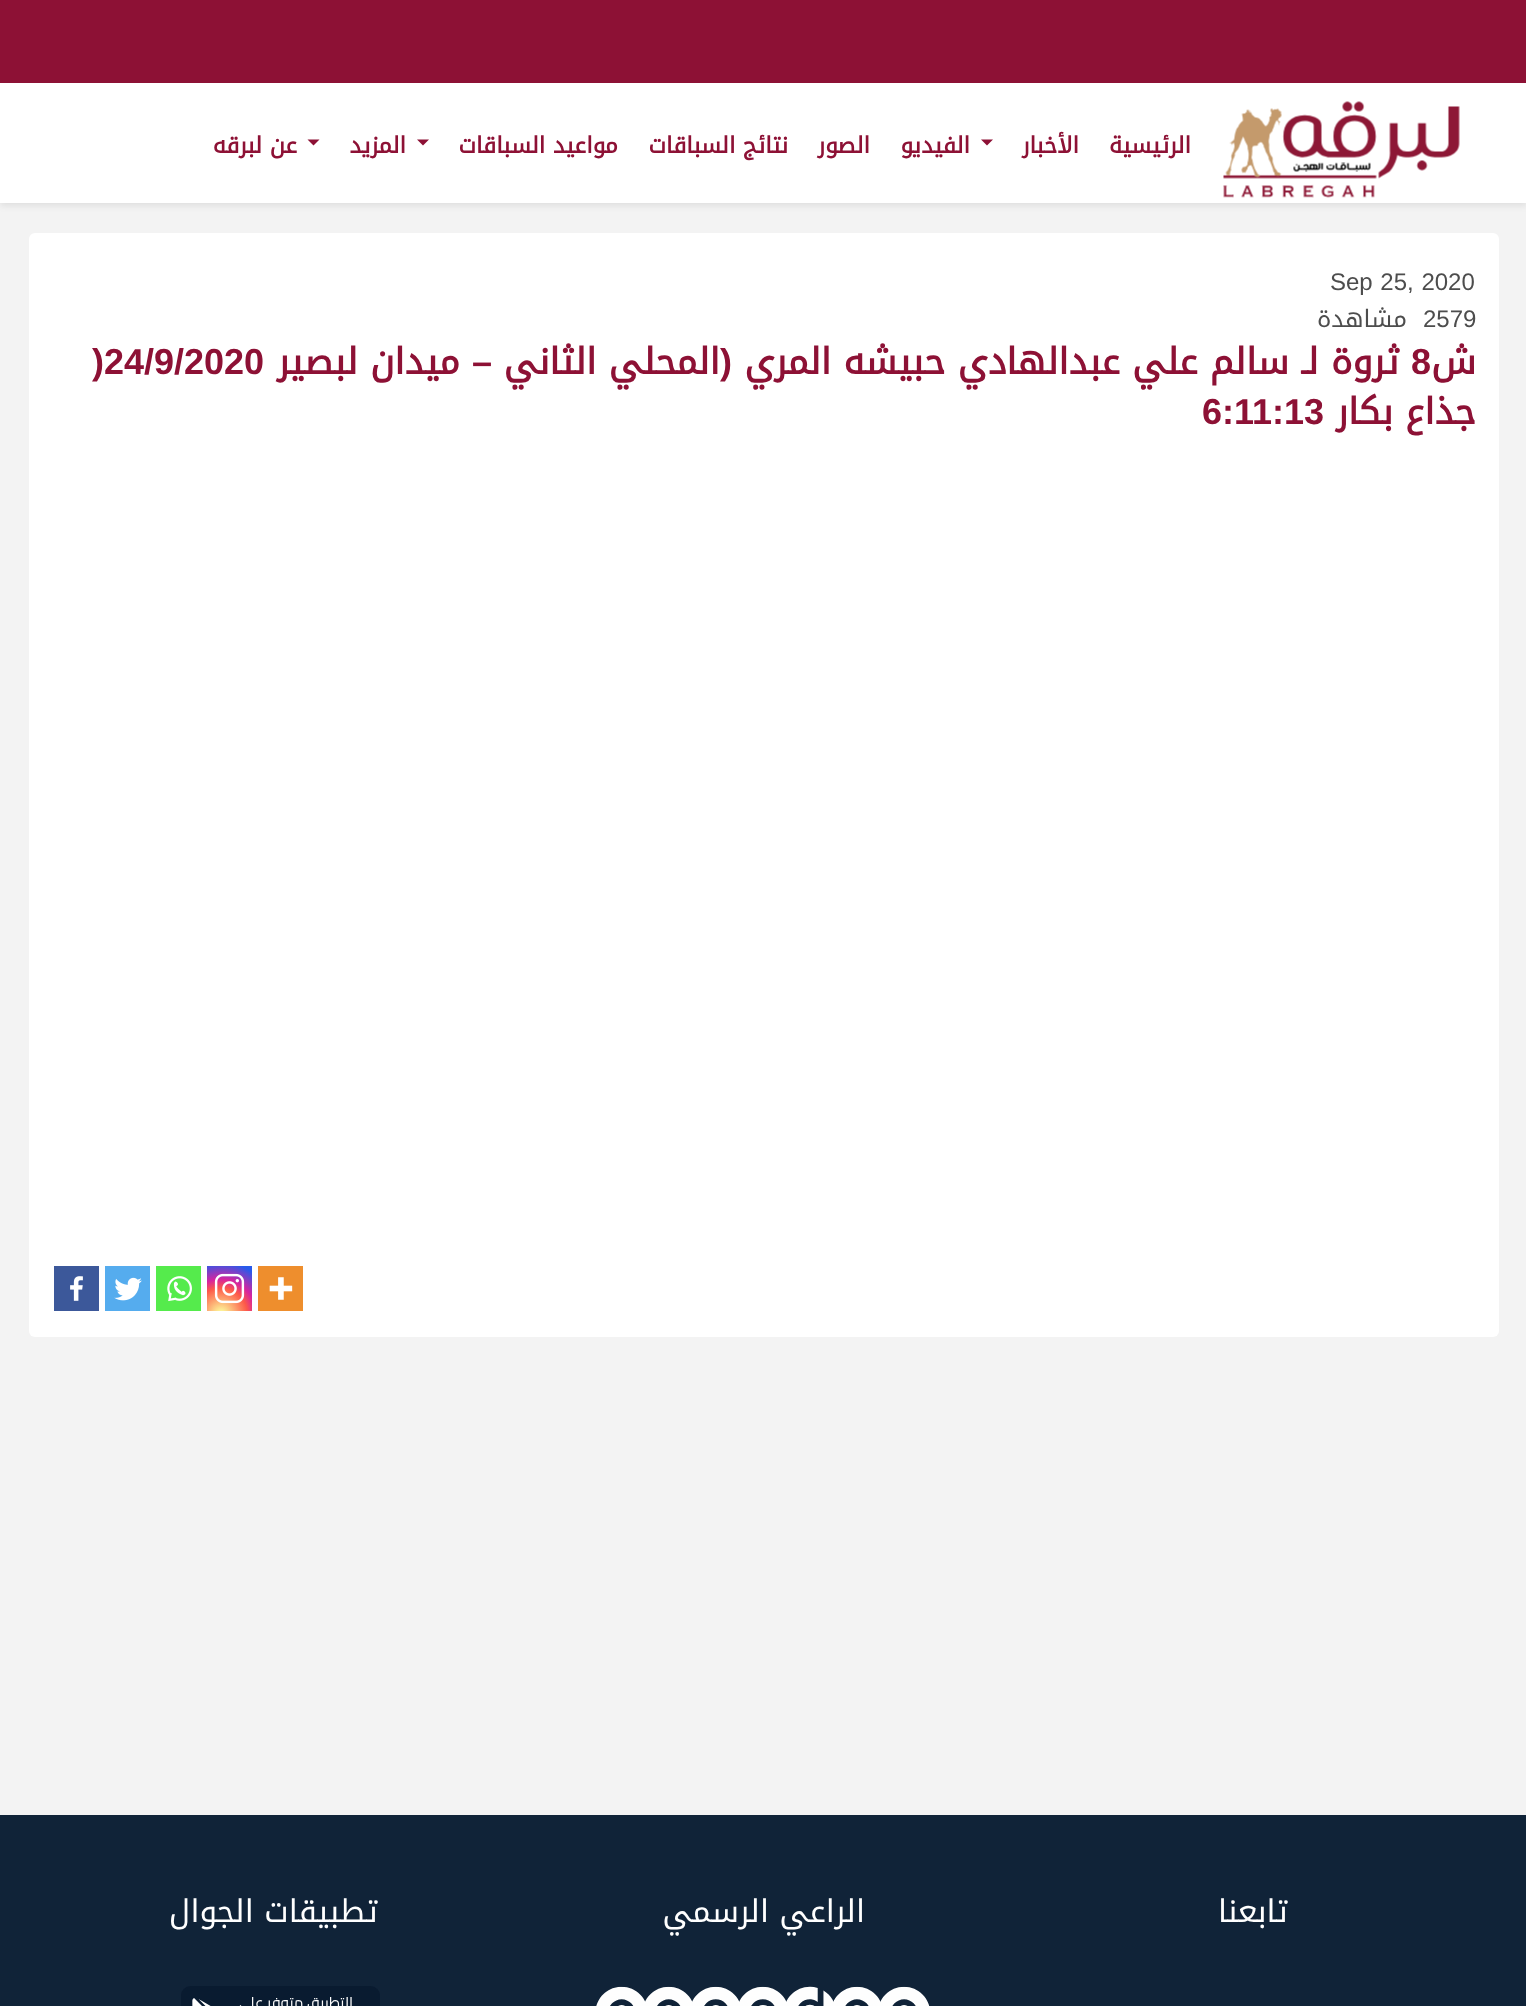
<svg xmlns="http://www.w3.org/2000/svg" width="1526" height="2006">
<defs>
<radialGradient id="g1" gradientUnits="userSpaceOnUse" cx="221" cy="1314" r="58"><stop offset="0" stop-color="#fdf497"/><stop offset="0.05" stop-color="#fdf497"/><stop offset="0.45" stop-color="#fd5949"/><stop offset="0.6" stop-color="#d6249f"/><stop offset="0.9" stop-color="#285aeb"/></radialGradient>
</defs>
<rect width="100%" height="100%" fill="#f3f3f3"/>
<rect y="3" width="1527" height="203" fill="#00000014" filter="blur(3px)"/>
<rect y="83" width="1526" height="120" fill="#fff"/>
<rect width="1526" height="83" fill="#8d1135"/>
<image x="1223" y="101" width="237" height="97" href="media/1.png"/>
<text x="1191" y="153" style="font-family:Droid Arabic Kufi;font-size:22.5px;font-weight:bold;direction:rtl;fill:#8d1135">الرئيسية</text>
<text x="1079" y="153" style="font-family:Droid Arabic Kufi;font-size:22.5px;font-weight:bold;direction:rtl;fill:#8d1135">الأخبار</text>
<path d="M981 139.5h12l-6 6z" fill="#8d1135"/>
<text x="970" y="153" style="font-family:Droid Arabic Kufi;font-size:22.5px;font-weight:bold;direction:rtl;fill:#8d1135">الفيديو</text>
<text x="870" y="153" style="font-family:Droid Arabic Kufi;font-size:22.5px;font-weight:bold;direction:rtl;fill:#8d1135">الصور</text>
<text x="788" y="153" style="font-family:Droid Arabic Kufi;font-size:22.5px;font-weight:bold;direction:rtl;fill:#8d1135">نتائج السباقات</text>
<text x="618" y="153" style="font-family:Droid Arabic Kufi;font-size:22.5px;font-weight:bold;direction:rtl;fill:#8d1135">مواعيد السباقات</text>
<path d="M417 139.5h12l-6 6z" fill="#8d1135"/>
<text x="406" y="153" style="font-family:Droid Arabic Kufi;font-size:22.5px;font-weight:bold;direction:rtl;fill:#8d1135">المزيد</text>
<path d="M307.5 139.5h12l-6 6z" fill="#8d1135"/>
<text x="297" y="153" style="font-family:Droid Arabic Kufi;font-size:22.5px;font-weight:bold;direction:rtl;fill:#8d1135">عن لبرقه</text>
<rect x="29" y="233" width="1470" height="1104" rx="6" fill="#fff"/>
<text x="1330" y="290" word-spacing="1" style="font-family:Liberation Sans;font-size:24px;fill:#4d4d4d">Sep 25, 2020</text>
<text x="1423" y="327" style="font-family:Liberation Sans;font-size:24px;fill:#4d4d4d">2579</text>
<text x="1407" y="327" style="font-family:Droid Arabic Kufi;font-size:24px;direction:rtl;fill:#4d4d4d">مشاهدة</text>
<text x="1476" y="374" style="font-family:Droid Arabic Kufi;font-size:36px;font-weight:bold;direction:rtl;fill:#8d1135">ش</text>
<text x="1411" y="374" style="font-family:Liberation Sans;font-size:36px;font-weight:bold;fill:#8d1135">8</text>
<text x="1399" y="374" style="font-family:Droid Arabic Kufi;font-size:36px;font-weight:bold;direction:rtl;fill:#8d1135">ثروة لـ سالم علي عبدالهادي حبيشه المري</text>
<text x="732" y="374" style="font-family:Liberation Sans;font-size:36px;font-weight:bold;direction:rtl;fill:#8d1135">(</text>
<text x="720" y="374" style="font-family:Droid Arabic Kufi;font-size:36px;font-weight:bold;direction:rtl;fill:#8d1135">المحلي الثاني</text>
<text x="492" y="374" style="font-family:Liberation Sans;font-size:36px;font-weight:bold;direction:rtl;fill:#8d1135">–</text>
<text x="460" y="374" style="font-family:Droid Arabic Kufi;font-size:36px;font-weight:bold;direction:rtl;fill:#8d1135">ميدان لبصير</text>
<text x="92" y="374" style="font-family:Liberation Sans;font-size:36px;font-weight:bold;fill:#8d1135">)24/9/2020</text>
<text x="1476" y="424" style="font-family:Droid Arabic Kufi;font-size:36px;font-weight:bold;direction:rtl;fill:#8d1135">جذاع بكار</text>
<text x="1202" y="424" style="font-family:Liberation Sans;font-size:36px;font-weight:bold;fill:#8d1135">6:11:13</text>
<rect x="258" y="1266" width="45" height="45" fill="#ee8e2d"/>
<image x="269" y="1277" width="24" height="23" href="media/2.png"/>
<rect x="207" y="1266" width="45" height="45" fill="url(#g1)"/>
<image x="214" y="1273" width="31" height="31" href="media/3.png"/>
<rect x="156" y="1266" width="45" height="45" fill="#55eb4c"/>
<image x="167" y="1276" width="25" height="26" href="media/4.png"/>
<rect x="105" y="1266" width="45" height="45" fill="#55acee"/>
<image x="114" y="1277" width="28" height="24" href="media/5.png"/>
<rect x="54" y="1266" width="45" height="45" fill="#3c589a"/>
<image x="70" y="1276" width="13" height="25" href="media/6.png"/>
<rect y="1815" width="1526" height="191" fill="#102338"/>
<text x="1288" y="1922" style="font-family:Droid Arabic Kufi;font-size:31.25px;direction:rtl;fill:#fff">تابعنا</text>
<text x="865" y="1922" style="font-family:Droid Arabic Kufi;font-size:31.25px;direction:rtl;fill:#fff">الراعي الرسمي</text>
<image x="596" y="1986" width="334" height="20" href="media/7.png"/>
<text x="378" y="1922" style="font-family:Droid Arabic Kufi;font-size:31.25px;direction:rtl;fill:#fff">تطبيقات الجوال</text>
<image x="181" y="1986" width="199" height="20" href="media/8.png"/>
</svg>
